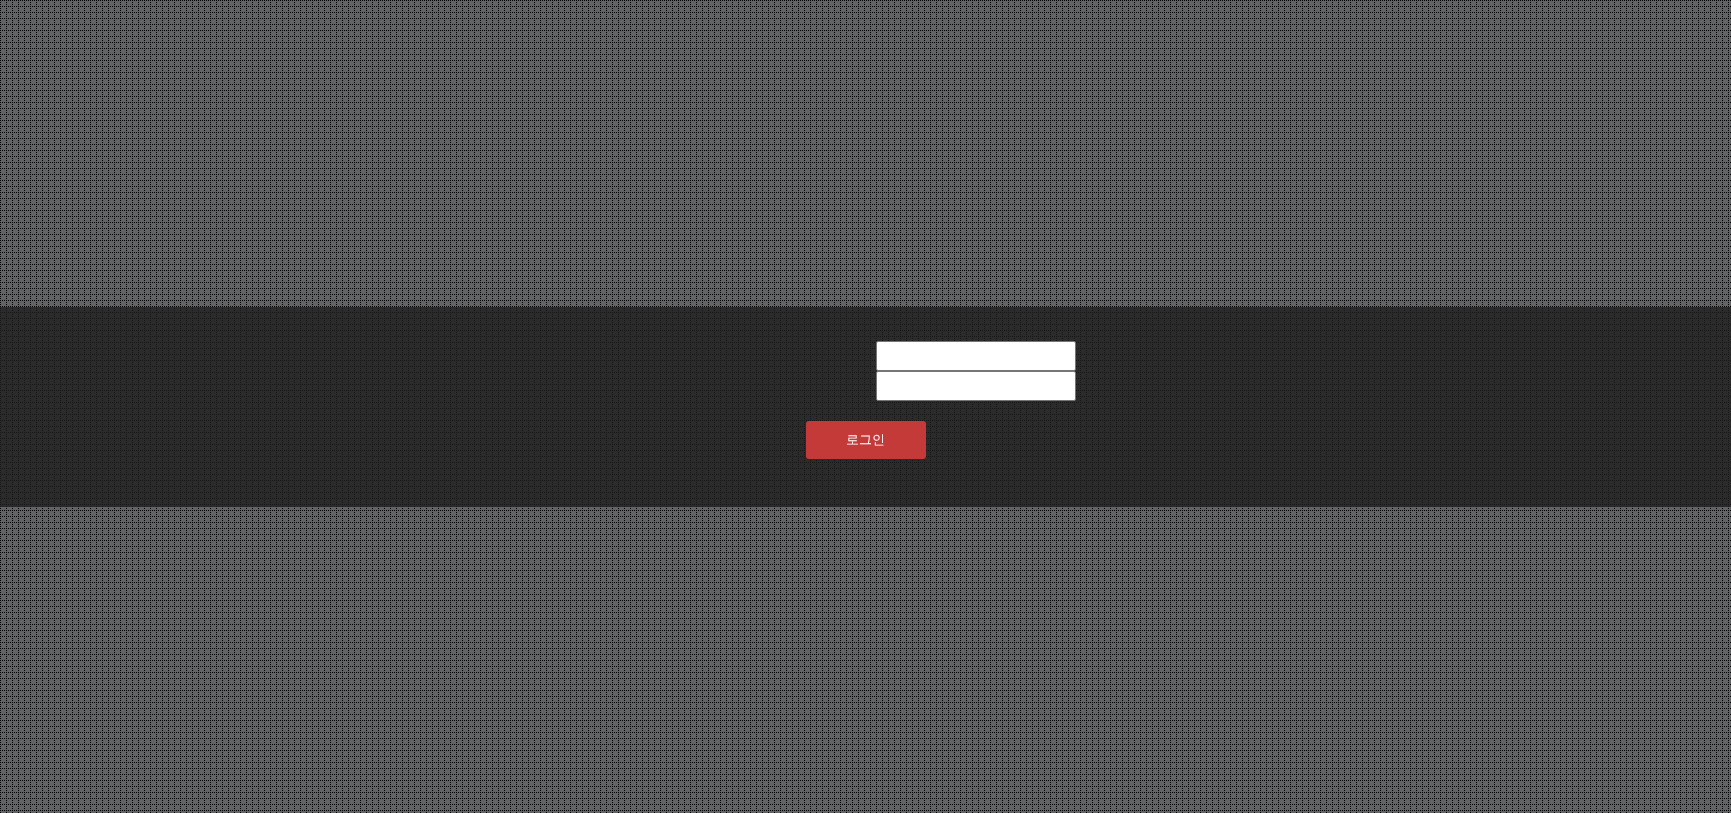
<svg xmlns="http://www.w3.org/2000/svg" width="1731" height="813">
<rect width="100%" height="100%" fill="#f4f7f9"/>
<image x="0" y="0" width="1731" height="813" href="media/1.png"/>
<rect y="307" width="1731" height="200" fill="#1e1d1dcc"/>
<rect x="876.5" y="341.5" width="199" height="29" rx="1.5" fill="#fff" stroke="#767676"/>
<rect x="876.5" y="371.5" width="199" height="29" rx="1.5" fill="#fff" stroke="#767676"/>
<rect x="806" y="421" width="120" height="38" rx="3" fill="#c33a39"/>
<text x="846" y="444" style="font-family:WenQuanYi Zen Hei;font-size:13px;font-weight:500;fill:#fff">로그인</text>
</svg>
